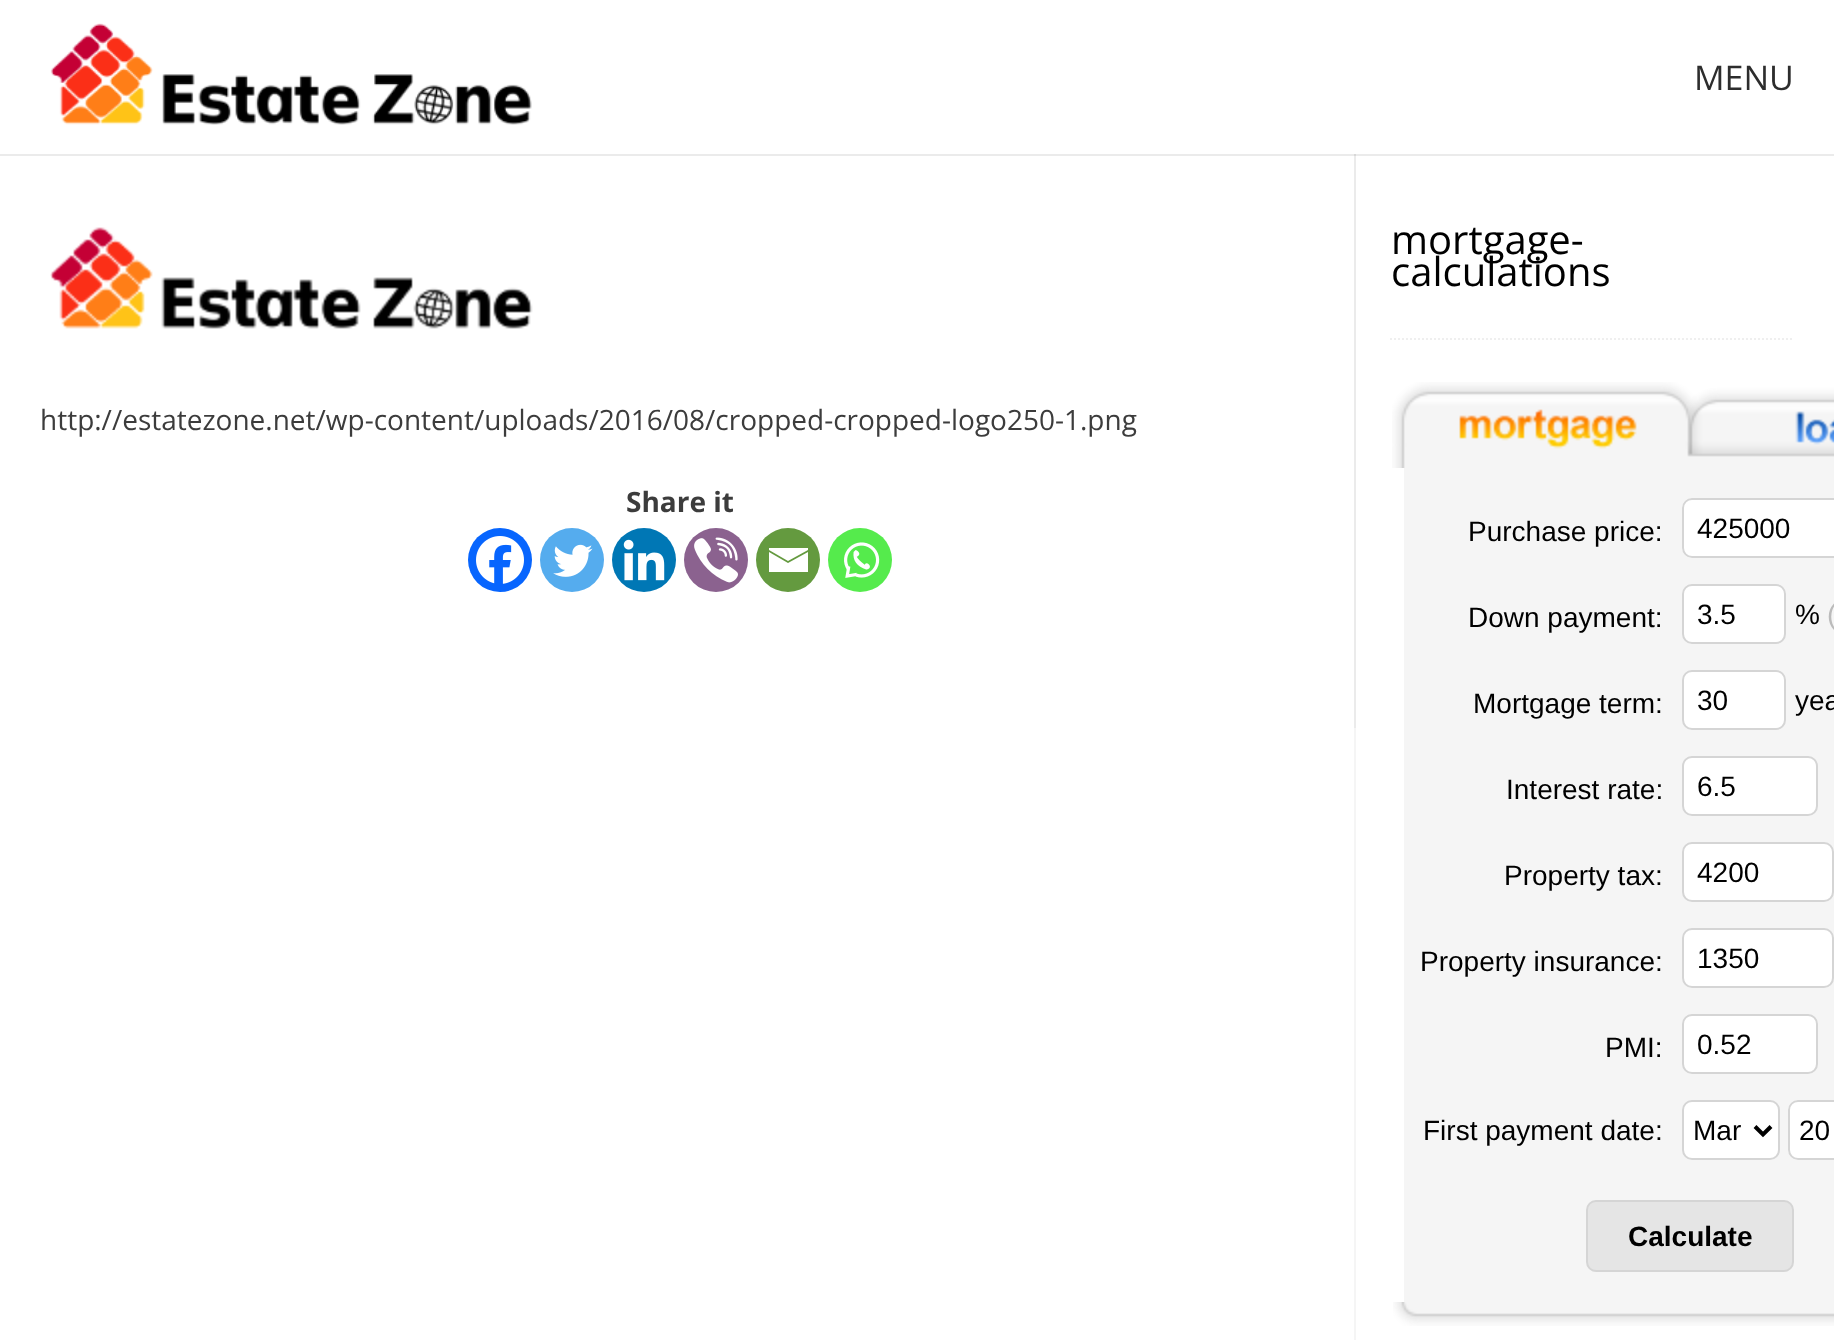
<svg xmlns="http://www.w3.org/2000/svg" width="1834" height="1340">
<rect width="100%" height="100%" fill="#fff"/>
<rect y="154" width="1834" height="2" fill="#ebebeb"/>
<image x="50" y="23" width="482" height="102" href="media/1.png"/>
<text x="1694" y="90" style="font-family:Open Sans;font-size:34px;fill:#2d2d2d">MENU</text>
<image x="50" y="227" width="483" height="102" href="media/2.png"/>
<text x="40" y="430" style="font-family:Open Sans;font-size:28px;fill:#3c3c3c">http://estatezone.net/wp-content/uploads/2016/08/cropped-cropped-logo250-1.png</text>
<text x="626" y="512" style="font-family:Open Sans;font-size:28px;font-weight:bold;fill:#3c3c3c">Share it</text>
<circle cx="500" cy="560" r="32" fill="#0765fe"/>
<image x="476" y="536" width="48" height="48" href="media/3.png"/>
<circle cx="572" cy="560" r="32" fill="#55acee"/>
<image x="553" y="544" width="40" height="33" href="media/4.png"/>
<circle cx="644" cy="560" r="32" fill="#0077b5"/>
<image x="623" y="539" width="42" height="42" href="media/5.png"/>
<circle cx="716" cy="560" r="32" fill="#8b628f"/>
<image x="694" y="537" width="44" height="46" href="media/6.png"/>
<circle cx="788" cy="560" r="32" fill="#649a3f"/>
<path d="M767 548h41v2l-20 11l-19-11v-2m0 4l19 11l20-11v20h-39v-20" fill="#fff"/>
<circle cx="860" cy="560" r="32" fill="#55eb4c"/>
<image x="844" y="542" width="36" height="36" href="media/7.png"/>
<rect x="1354" y="728" width="2" height="612" fill="#f5f5f5"/>
<rect x="1354" y="154" width="2" height="574" fill="#ebebeb"/>
<rect x="1354" y="154" width="2" height="2" fill="#d8d8d8"/>
<path d="M1390 339h404" fill="none" stroke="#efefef" stroke-width="2" stroke-dasharray="2 2"/>
<text x="1391" y="254" style="font-family:Open Sans;font-size:40px;fill:#000">mortgage-</text>
<text x="1391" y="286" style="font-family:Open Sans;font-size:40px;fill:#000">calculations</text>
<image x="1392" y="382" width="442" height="86" href="media/8.png"/>
<rect x="1404" y="468" width="430" height="834" fill="#f5f5f5"/>
<text x="1468" y="541" style="font-family:Liberation Sans;font-size:28px;fill:#000">Purchase price:</text>
<path d="M1692 498h142v60h-142c-5.5 0-10-4.5-10-10v-40c0-5.5 4.5-10 10-10z" fill="#fff"/>
<rect x="1683" y="499" width="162" height="58" rx="9" fill="none" stroke="#d5d5d5" stroke-width="2"/>
<text x="1697" y="538" style="font-family:Liberation Sans;font-size:28px;fill:#000">425000</text>
<text x="1468" y="627" style="font-family:Liberation Sans;font-size:28px;fill:#000">Down payment:</text>
<rect x="1683" y="585" width="102" height="58" rx="9" fill="#fff" stroke="#d5d5d5" stroke-width="2"/>
<text x="1697" y="624" style="font-family:Liberation Sans;font-size:28px;fill:#000">3.5</text>
<text x="1795" y="624" style="font-family:Liberation Sans;font-size:28px;fill:#000">%</text>
<text x="1827" y="624" style="font-family:Liberation Sans;font-size:28px;fill:#bbb">(</text>
<text x="1473" y="713" style="font-family:Liberation Sans;font-size:28px;fill:#000">Mortgage term:</text>
<rect x="1683" y="671" width="102" height="58" rx="9" fill="#fff" stroke="#d5d5d5" stroke-width="2"/>
<text x="1697" y="710" style="font-family:Liberation Sans;font-size:28px;fill:#000">30</text>
<text x="1795" y="710" style="font-family:Liberation Sans;font-size:28px;fill:#000">yea</text>
<text x="1506" y="799" style="font-family:Liberation Sans;font-size:28px;fill:#000">Interest rate:</text>
<rect x="1683" y="757" width="134" height="58" rx="9" fill="#fff" stroke="#d5d5d5" stroke-width="2"/>
<text x="1697" y="796" style="font-family:Liberation Sans;font-size:28px;fill:#000">6.5</text>
<text x="1504" y="885" style="font-family:Liberation Sans;font-size:28px;fill:#000">Property tax:</text>
<rect x="1683" y="843" width="150" height="58" rx="9" fill="#fff" stroke="#d5d5d5" stroke-width="2"/>
<text x="1697" y="882" style="font-family:Liberation Sans;font-size:28px;fill:#000">4200</text>
<text x="1420" y="971" style="font-family:Liberation Sans;font-size:28px;fill:#000">Property insurance:</text>
<rect x="1683" y="929" width="150" height="58" rx="9" fill="#fff" stroke="#d5d5d5" stroke-width="2"/>
<text x="1697" y="968" style="font-family:Liberation Sans;font-size:28px;fill:#000">1350</text>
<text x="1605" y="1057" style="font-family:Liberation Sans;font-size:28px;fill:#000">PMI:</text>
<rect x="1683" y="1015" width="134" height="58" rx="9" fill="#fff" stroke="#d5d5d5" stroke-width="2"/>
<text x="1697" y="1054" style="font-family:Liberation Sans;font-size:28px;fill:#000">0.52</text>
<text x="1423" y="1140" style="font-family:Liberation Sans;font-size:28px;fill:#000">First payment date:</text>
<rect x="1683" y="1101" width="96" height="58" rx="9" fill="#fff" stroke="#d5d5d5" stroke-width="2"/>
<path d="M1755 1126.5l8 8l8-8" fill="none" stroke="#000" stroke-width="4"/>
<text x="1693" y="1140" style="font-family:Liberation Sans;font-size:28px;fill:#000">Mar</text>
<path d="M1798 1100h36v60h-36c-5.5 0-10-4.5-10-10v-40c0-5.5 4.5-10 10-10z" fill="#fff"/>
<rect x="1789" y="1101" width="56" height="58" rx="9" fill="none" stroke="#d5d5d5" stroke-width="2"/>
<text x="1799" y="1140" style="font-family:Liberation Sans;font-size:28px;fill:#000">20</text>
<rect x="1587" y="1201" width="206" height="70" rx="9" fill="#e5e5e5" stroke="#d5d5d5" stroke-width="2"/>
<text x="1628" y="1246" style="font-family:Liberation Sans;font-size:28px;font-weight:bold;fill:#000">Calculate</text>
<image x="1393" y="1302" width="441" height="24" href="media/9.png"/>
</svg>
